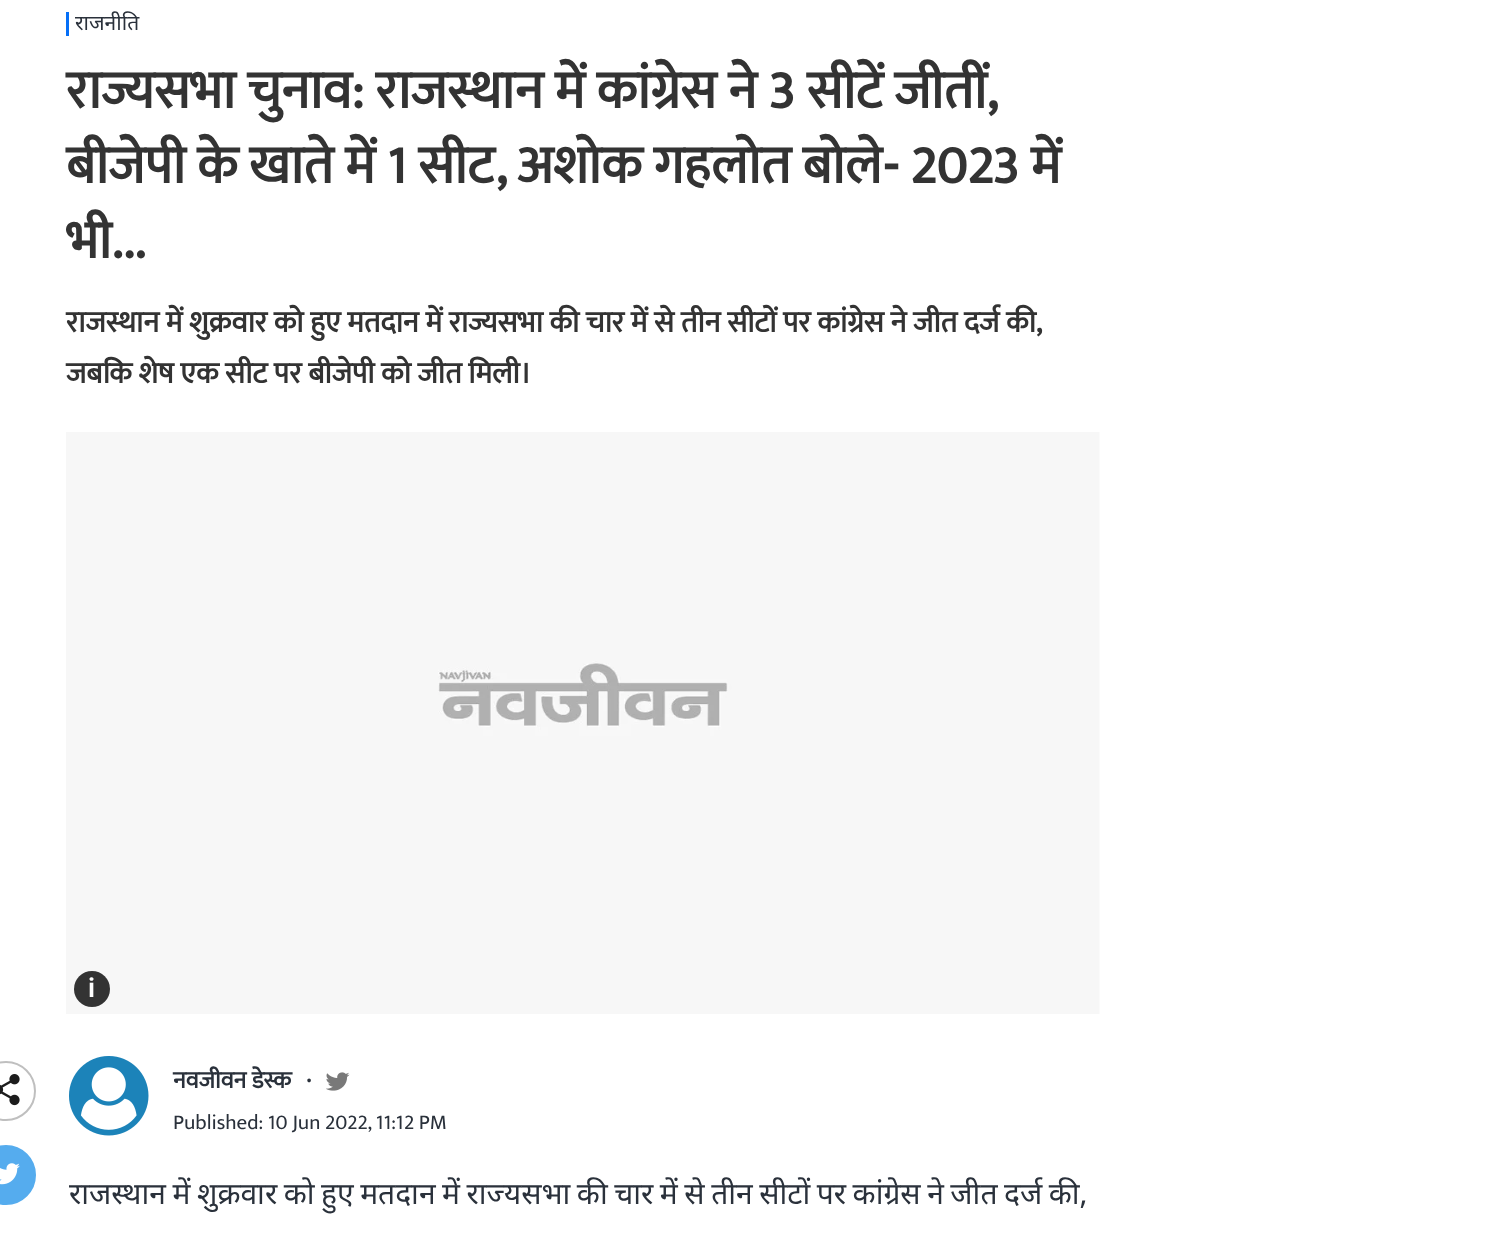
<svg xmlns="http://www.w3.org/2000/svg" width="1512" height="1238">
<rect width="100%" height="100%" fill="#fff"/>
<rect x="66" y="12" width="3" height="24" fill="#056ff7"/>
<text x="75" y="30" style="font-family:Noto Sans;font-size:21px;fill:#2a313b">राजनीति</text>
<text x="66" y="108" word-spacing="-0.25" style="font-family:Ek Mukta;font-size:54px;font-weight:bold;fill:#333">राज्यसभा चुनाव: राजस्थान में कांग्रेस ने 3 सीटें जीतीं,</text>
<text x="66" y="183" word-spacing="-0.25" style="font-family:Ek Mukta;font-size:54px;font-weight:bold;fill:#333">बीजेपी के खाते में 1 सीट, अशोक गहलोत बोले- 2023 में</text>
<text x="66" y="258" style="font-family:Ek Mukta;font-size:54px;font-weight:bold;fill:#333">भी...</text>
<text x="66" y="332" style="font-family:Ek Mukta;font-size:30px;font-weight:bold;fill:#333">राजस्थान में शुक्रवार को हुए मतदान में राज्यसभा की चार में से तीन सीटों पर कांग्रेस ने जीत दर्ज की,</text>
<text x="66" y="383" style="font-family:Ek Mukta;font-size:30px;font-weight:bold;fill:#333">जबकि शेष एक सीट पर बीजेपी को जीत मिली।</text>
<image x="66" y="432" width="1034" height="582" href="media/1.png"/>
<circle cx="92" cy="989" r="18" fill="#333"/>
<text x="88" y="997" style="font-family:Roboto;font-size:27px;font-weight:600;fill:#fff">i</text>
<circle cx="6" cy="1091" r="29" fill="none" stroke="#bfbfbf" stroke-width="2"/>
<image x="0" y="1074" width="20" height="32" href="media/2.png"/>
<circle cx="6" cy="1175" r="29" fill="#55acee" stroke="#55acee" stroke-width="2"/>
<image x="0" y="1163" width="20" height="22" href="media/3.png"/>
<image x="69" y="1056" width="80" height="80" href="media/4.png"/>
<text x="173" y="1088" style="font-family:Ek Mukta;font-size:24px;font-weight:bold;fill:#2a313b">नवजीवन डेस्क</text>
<text x="306" y="1082" style="font-family:Ek Mukta;font-size:24px;font-weight:bold;fill:#2a313b">.</text>
<image x="326" y="1072" width="24" height="19" href="media/5.png"/>
<text x="173" y="1129" style="font-family:Ek Mukta;font-size:21px;fill:#2a313b">Published: 10 Jun 2022, 11:12 PM</text>
<text x="69" y="1204" word-spacing="-1.25" style="font-family:Noto Sans;font-size:30px;fill:#2a313b">राजस्थान में शुक्रवार को हुए मतदान में राज्यसभा की चार में से तीन सीटों पर कांग्रेस ने जीत दर्ज की,</text>
</svg>
